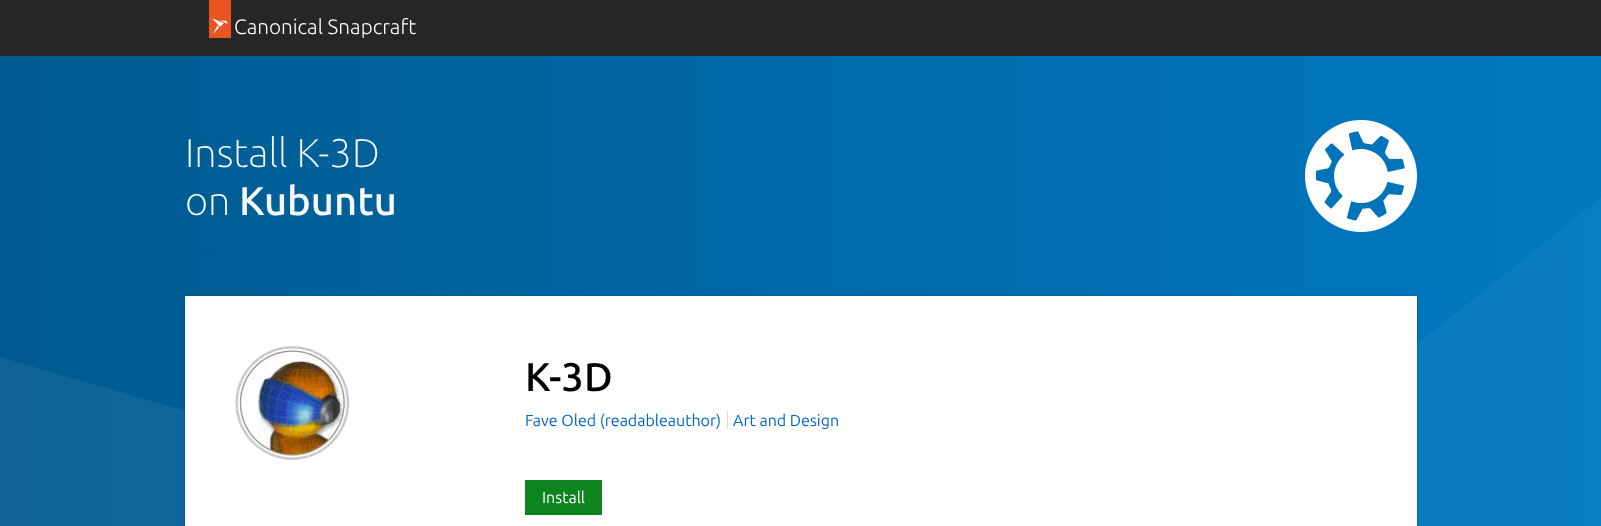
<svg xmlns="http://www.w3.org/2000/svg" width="1601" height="526">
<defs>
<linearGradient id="g1" gradientUnits="userSpaceOnUse" x1="1601" y1="367" x2="0" y2="367"><stop offset="0" stop-color="#0079c1"/><stop offset="1" stop-color="#005a8f"/></linearGradient>
</defs>
<rect width="100%" height="100%" fill="#fff"/>
<rect width="1601" height="56" fill="#262626"/>
<rect x="209" width="22" height="38" fill="#e95420"/>
<image x="212" y="18" width="16" height="16" href="media/1.png"/>
<text x="234" y="34" style="font-family:Ubuntu;font-size:20.75px;font-weight:300;fill:#fff">Canonical Snapcraft</text>
<rect y="56" width="1601" height="470" fill="url(#g1)"/>
<path d="M1601 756v-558l-703 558z" fill="#ffffff0a"/>
<path d="M0 357v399h1369z" fill="#ffffff0f"/>
<text x="185" y="167" style="font-family:Ubuntu;font-size:40px;font-weight:200;fill:#f7f7f7">Install K-3D</text>
<text x="185" y="215" style="font-family:Ubuntu;font-size:40px;font-weight:200;fill:#f7f7f7">on</text>
<text x="239" y="215" style="font-family:Ubuntu;font-size:40px;font-weight:500;fill:#f7f7f7">Kubuntu</text>
<image x="1305" y="120" width="112" height="112" href="media/2.png"/>
<rect x="185" y="296" width="1232" height="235" fill="#00000033" filter="blur(1.5px)"/>
<rect x="185" y="296" width="1232" height="230" fill="#fff"/>
<image x="235" y="346" width="115" height="114" href="media/3.png"/>
<text x="525" y="391" style="font-family:Ubuntu;font-size:40px;font-weight:500;fill:#000">K-3D</text>
<text x="525" y="426" style="font-family:Ubuntu;font-size:16px;fill:#06c">Fave Oled (readableauthor)</text>
<rect x="727" y="411" width="1" height="18" fill="#d9d9d9"/>
<text x="733" y="426" style="font-family:Ubuntu;font-size:16px;fill:#06c">Art and Design</text>
<rect x="525" y="480" width="77" height="35" fill="#0e8420"/>
<text x="542" y="503" style="font-family:Ubuntu;font-size:16px;fill:#fff">Install</text>
</svg>
